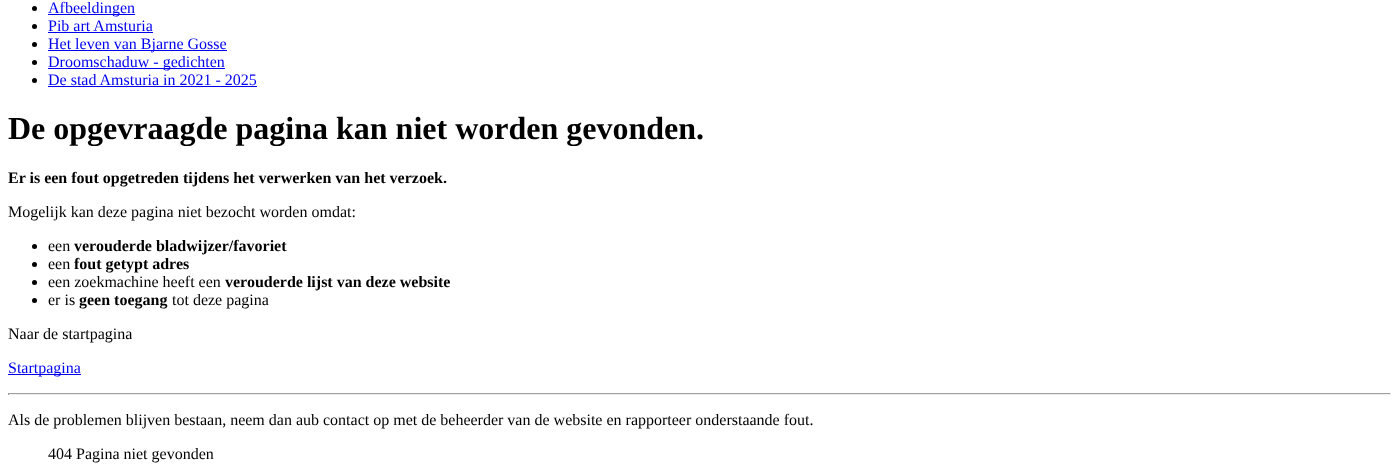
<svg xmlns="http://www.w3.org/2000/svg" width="1399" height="465">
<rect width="100%" height="100%" fill="#fff"/>
<circle cx="34.5" cy="8.5" r="2.5" fill="#000"/>
<rect x="48" y="14" width="87" height="1" fill="#00e"/>
<text x="48" y="13" style="font-family:Liberation Serif;font-size:16px;fill:#00e">Afbeeldingen</text>
<circle cx="34.5" cy="26.5" r="2.5" fill="#000"/>
<text x="48" y="31" style="font-family:Liberation Serif;font-size:16px;fill:#00e">Pib art Amsturia</text>
<rect x="48" y="32" width="105" height="1" fill="#00e"/>
<circle cx="34.5" cy="44.5" r="2.5" fill="#000"/>
<rect x="48" y="50" width="179" height="1" fill="#00e"/>
<text x="48" y="49" style="font-family:Liberation Serif;font-size:16px;fill:#00e">Het leven van Bjarne Gosse</text>
<circle cx="34.5" cy="62.5" r="2.5" fill="#000"/>
<rect x="48" y="68" width="177" height="1" fill="#00e"/>
<text x="48" y="67" style="font-family:Liberation Serif;font-size:16px;fill:#00e">Droomschaduw - gedichten</text>
<circle cx="34.5" cy="80.5" r="2.5" fill="#000"/>
<text x="48" y="85" style="font-family:Liberation Serif;font-size:16px;fill:#00e">De stad Amsturia in 2021 - 2025</text>
<rect x="48" y="86" width="209" height="1" fill="#00e"/>
<text x="8" y="139" style="font-family:Liberation Serif;font-size:32px;font-weight:bold;fill:#000">De opgevraagde pagina kan niet worden gevonden.</text>
<text x="8" y="183" style="font-family:Liberation Serif;font-size:16px;font-weight:bold;fill:#000">Er is een fout opgetreden tijdens het verwerken van het verzoek.</text>
<text x="8" y="217" style="font-family:Liberation Serif;font-size:16px;fill:#000">Mogelijk kan deze pagina niet bezocht worden omdat:</text>
<circle cx="34.5" cy="246.5" r="2.5" fill="#000"/>
<text x="48" y="251" style="font-family:Liberation Serif;font-size:16px;fill:#000">een</text>
<text x="74" y="251" style="font-family:Liberation Serif;font-size:16px;font-weight:bold;fill:#000">verouderde bladwijzer/favoriet</text>
<circle cx="34.5" cy="264.5" r="2.5" fill="#000"/>
<text x="48" y="269" style="font-family:Liberation Serif;font-size:16px;fill:#000">een</text>
<text x="74" y="269" style="font-family:Liberation Serif;font-size:16px;font-weight:bold;fill:#000">fout getypt adres</text>
<circle cx="34.5" cy="282.5" r="2.5" fill="#000"/>
<text x="48" y="287" style="font-family:Liberation Serif;font-size:16px;fill:#000">een zoekmachine heeft een</text>
<text x="225" y="287" style="font-family:Liberation Serif;font-size:16px;font-weight:bold;fill:#000">verouderde lijst van deze website</text>
<circle cx="34.5" cy="300.5" r="2.5" fill="#000"/>
<text x="48" y="305" style="font-family:Liberation Serif;font-size:16px;fill:#000">er is</text>
<text x="79" y="305" style="font-family:Liberation Serif;font-size:16px;font-weight:bold;fill:#000">geen toegang</text>
<text x="172" y="305" style="font-family:Liberation Serif;font-size:16px;fill:#000">tot deze pagina</text>
<text x="8" y="339" style="font-family:Liberation Serif;font-size:16px;fill:#000">Naar de startpagina</text>
<rect x="8" y="374" width="73" height="1" fill="#00e"/>
<text x="8" y="373" style="font-family:Liberation Serif;font-size:16px;fill:#00e">Startpagina</text>
<rect x="8" y="393" width="1383" height="1" fill="#9f9f9f"/>
<rect x="1390" y="393" width="1" height="2" fill="#eee"/>
<rect x="8" y="394" width="1383" height="1" fill="#eee"/>
<rect x="8" y="393" width="1" height="2" fill="#9f9f9f"/>
<text x="8" y="425" style="font-family:Liberation Serif;font-size:16px;fill:#000">Als de problemen blijven bestaan, neem dan aub contact op met de beheerder van de website en rapporteer onderstaande fout.</text>
<text x="48" y="459" style="font-family:Liberation Serif;font-size:16px;fill:#000">404 Pagina niet gevonden</text>
</svg>
